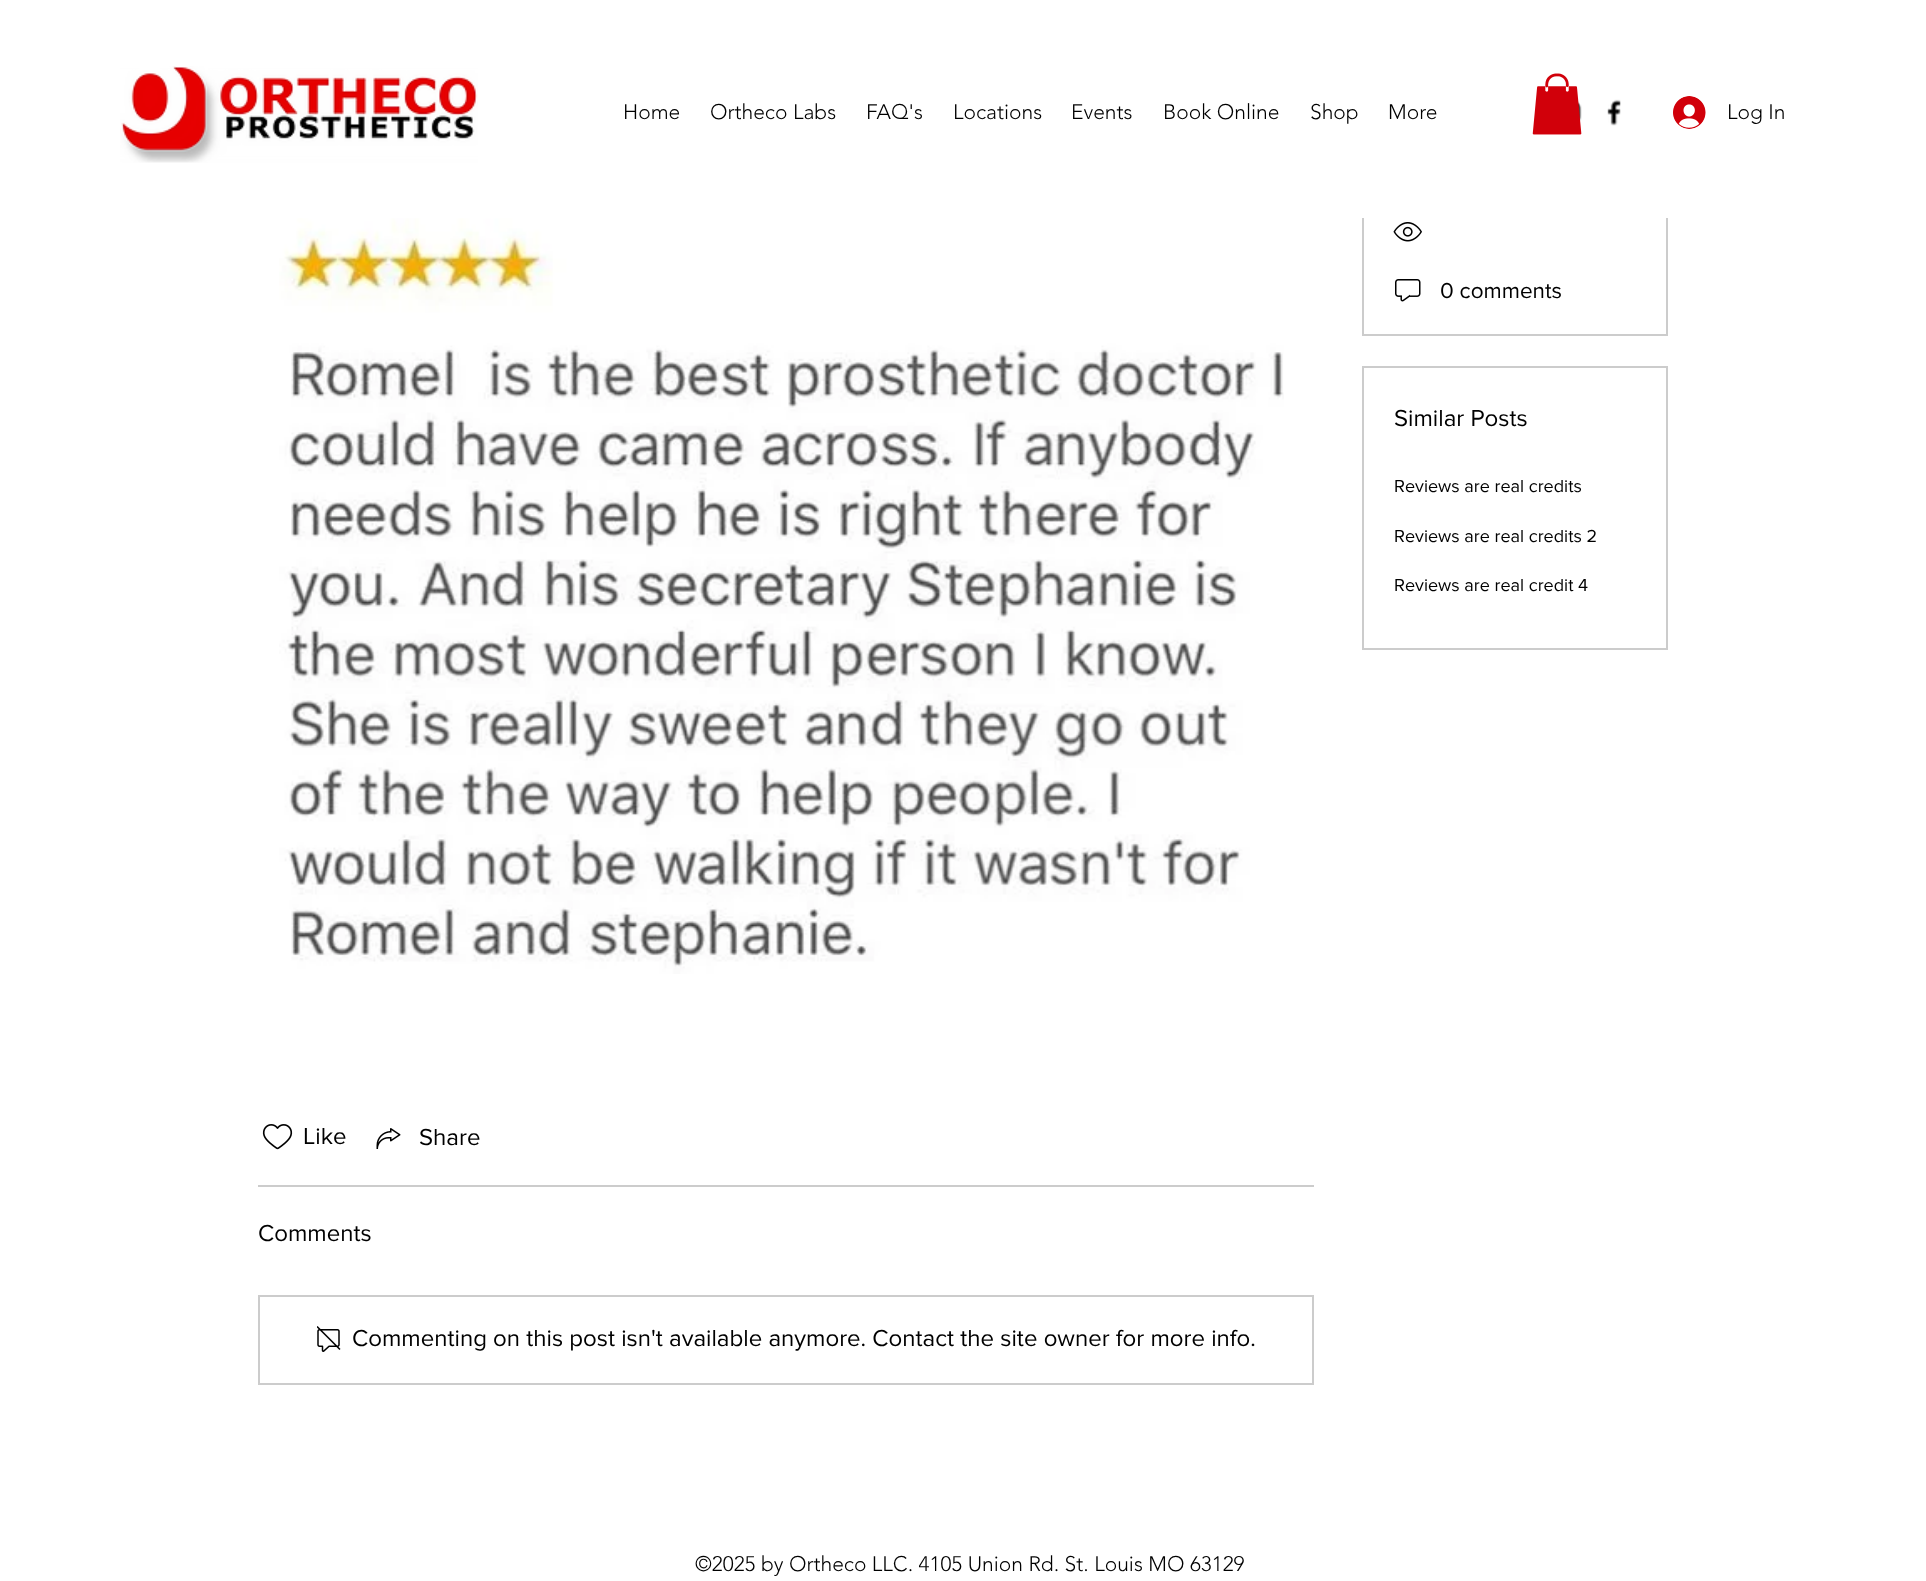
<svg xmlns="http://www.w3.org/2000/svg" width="1926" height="1581">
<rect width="100%" height="100%" fill="#fff"/>
<image x="120" y="66" width="358" height="97" href="media/1.png"/>
<text x="623" y="119" style="font-family:'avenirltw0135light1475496';font-size:21px;font-weight:300;fill:#000">Home</text>
<text x="710" y="119" style="font-family:'avenirltw0135light1475496';font-size:21px;font-weight:300;fill:#000">Ortheco Labs</text>
<text x="866" y="119" style="font-family:'avenirltw0135light1475496';font-size:21px;font-weight:300;fill:#000">FAQ's</text>
<text x="953" y="119" style="font-family:'avenirltw0135light1475496';font-size:21px;font-weight:300;fill:#000">Locations</text>
<text x="1071" y="119" style="font-family:'avenirltw0135light1475496';font-size:21px;font-weight:300;fill:#000">Events</text>
<text x="1163" y="119" style="font-family:'avenirltw0135light1475496';font-size:21px;font-weight:300;fill:#000">Book Online</text>
<text x="1310" y="119" style="font-family:'avenirltw0135light1475496';font-size:21px;font-weight:300;fill:#000">Shop</text>
<text x="1388" y="119" style="font-family:'avenirltw0135light1475496';font-size:21px;font-weight:300;fill:#000">More</text>
<image x="1578" y="101" width="4" height="20" href="media/3.png"/>
<image x="1532" y="73" width="50" height="62" href="media/2.png"/>
<image x="1607" y="99" width="14" height="27" href="media/4.png"/>
<image x="1673" y="96" width="33" height="33" href="media/5.png"/>
<text x="1727" y="119" style="font-family:'avenirltw0135light1475496';font-size:21px;font-weight:300;fill:#000">Log In</text>
<rect x="1363" y="187" width="304" height="148" fill="none" stroke="#ccc" stroke-width="2"/>
<rect x="1362" y="186" width="306" height="32" fill="#fff"/>
<image x="1393" y="222" width="29" height="20" href="media/6.png"/>
<image x="1395" y="279" width="26" height="23" href="media/7.png"/>
<text x="1440" y="298" style="font-family:'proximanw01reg';font-size:22.5px;fill:#000">0 comments</text>
<rect x="1363" y="367" width="304" height="282" fill="none" stroke="#ccc" stroke-width="2"/>
<text x="1394" y="426" style="font-family:'proximanw01reg';font-size:24px;fill:#000">Similar Posts</text>
<text x="1394" y="492" style="font-family:'proximanw01reg';font-size:18px;fill:#000">Reviews are real credits</text>
<text x="1394" y="542" style="font-family:'proximanw01reg';font-size:18px;fill:#000">Reviews are real credits 2</text>
<text x="1394" y="591" style="font-family:'proximanw01reg';font-size:18px;fill:#000">Reviews are real credit 4</text>
<image x="279" y="218" width="1005" height="756" href="media/8.png"/>
<image x="262" y="1124" width="31" height="26" href="media/9.png"/>
<text x="303" y="1144" style="font-family:'proximanw01reg';font-size:24px;fill:#000">Like</text>
<image x="376" y="1128" width="25" height="21" href="media/10.png"/>
<text x="419" y="1145" style="font-family:'proximanw01reg';font-size:24px;fill:#000">Share</text>
<rect x="258" y="1185" width="1056" height="2" fill="#ccc"/>
<text x="258" y="1241" style="font-family:'proximanw01reg';font-size:24px;fill:#000">Comments</text>
<rect x="259" y="1296" width="1054" height="88" fill="none" stroke="#ccc" stroke-width="2"/>
<image x="317" y="1326" width="24" height="26" href="media/11.png"/>
<text x="352" y="1346" style="font-family:'proximanw01reg';font-size:24px;fill:#000">Commenting on this post isn't available anymore. Contact the site owner for more info.</text>
<text x="695" y="1571" style="font-family:'avenirltw0135light1475496';font-size:21px;font-weight:300;fill:#000">©2025 by Ortheco LLC. 4105 Union Rd. St. Louis MO 63129</text>
</svg>
